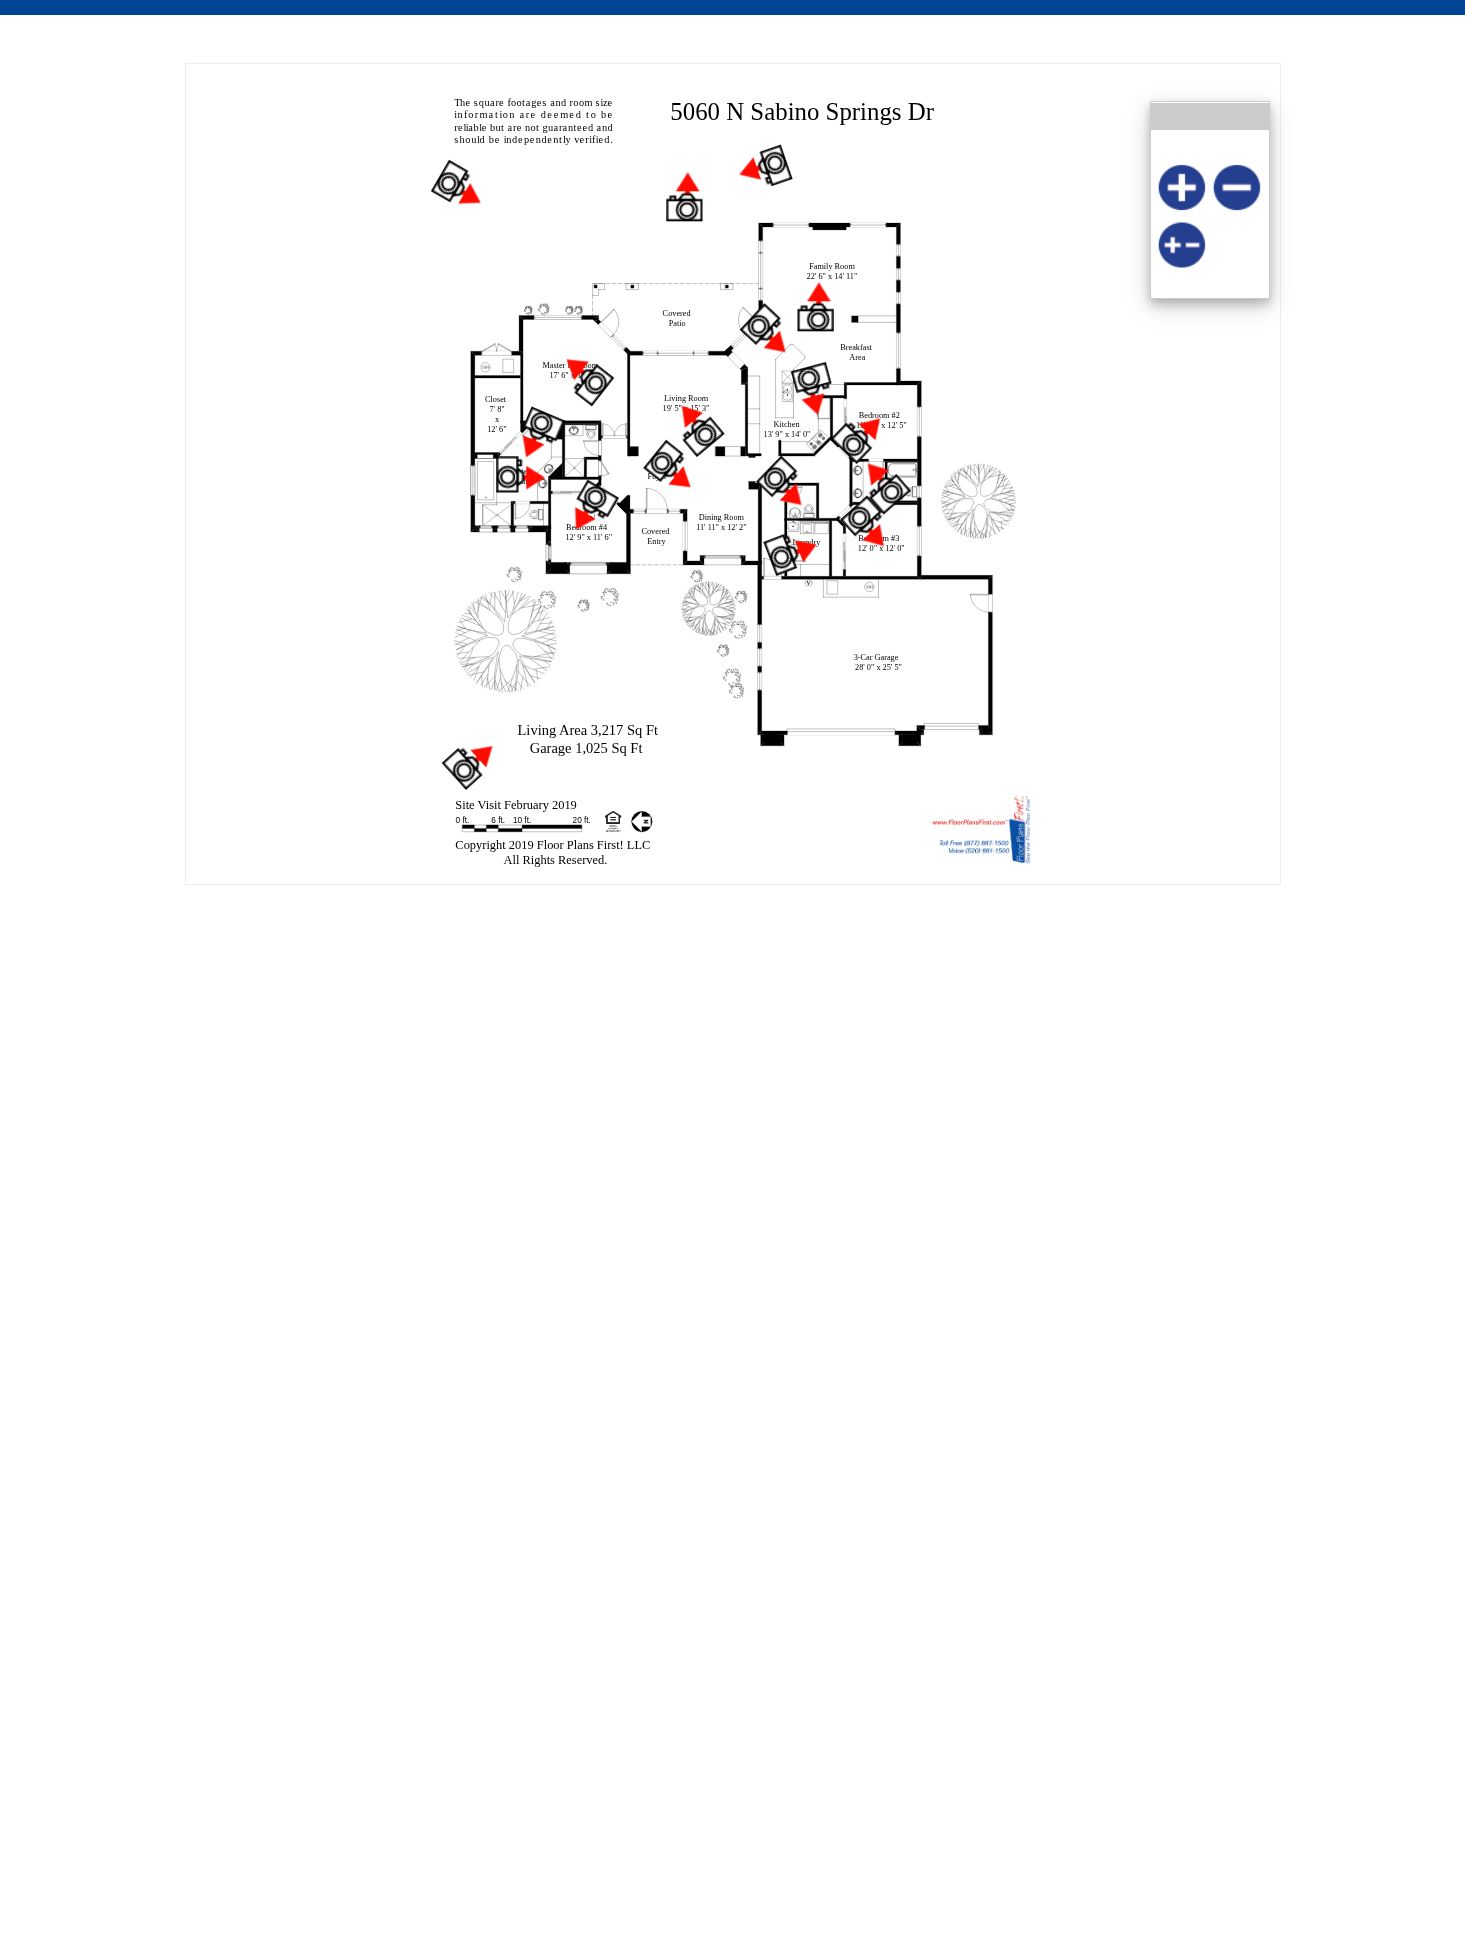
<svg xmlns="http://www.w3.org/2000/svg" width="1465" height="1933">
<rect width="100%" height="100%" fill="#fff"/>
<rect width="1465" height="15" fill="#004494"/>
<rect x="185.5" y="63.5" width="1095" height="821" fill="none" stroke="#eee"/>
<image x="454" y="98" width="577" height="769" href="media/1.png"/>
<rect x="1150" y="109" width="120" height="197" fill="#00000030" filter="blur(12.5px)"/>
<rect x="1150" y="106" width="120" height="198" fill="#00000033" filter="blur(5px)"/>
<rect x="1150.5" y="101.5" width="119" height="197" fill="#fff" stroke="#ccc"/>
<rect x="1151" y="103" width="118" height="27" fill="#ccc"/>
<image x="1158" y="164" width="48" height="47" href="media/2.png"/>
<image x="1213" y="164" width="48" height="47" href="media/3.png"/>
<image x="1158" y="222" width="48" height="46" href="media/4.png"/>
<image x="430" y="159" width="52" height="46" href="media/5.png"/>
<image x="666" y="172" width="37" height="50" href="media/6.png"/>
<image x="739" y="144" width="54" height="43" href="media/7.png"/>
<image x="739" y="303" width="48" height="50" href="media/8.png"/>
<image x="797" y="282" width="37" height="50" href="media/9.png"/>
<image x="565" y="358" width="50" height="49" href="media/10.png"/>
<image x="790" y="362" width="42" height="53" href="media/11.png"/>
<image x="496" y="456" width="50" height="37" href="media/16.png"/>
<image x="521" y="406" width="45" height="52" href="media/12.png"/>
<image x="681" y="405" width="44" height="52" href="media/14.png"/>
<image x="643" y="439" width="49" height="49" href="media/13.png"/>
<image x="831" y="417" width="50" height="48" href="media/15.png"/>
<image x="574" y="479" width="46" height="51" href="media/17.png"/>
<image x="755" y="456" width="48" height="50" href="media/18.png"/>
<image x="840" y="495" width="45" height="52" href="media/19.png"/>
<image x="866" y="463" width="46" height="52" href="media/20.png"/>
<image x="763" y="534" width="54" height="42" href="media/21.png"/>
<image x="441" y="745" width="52" height="45" href="media/22.png"/>
</svg>
